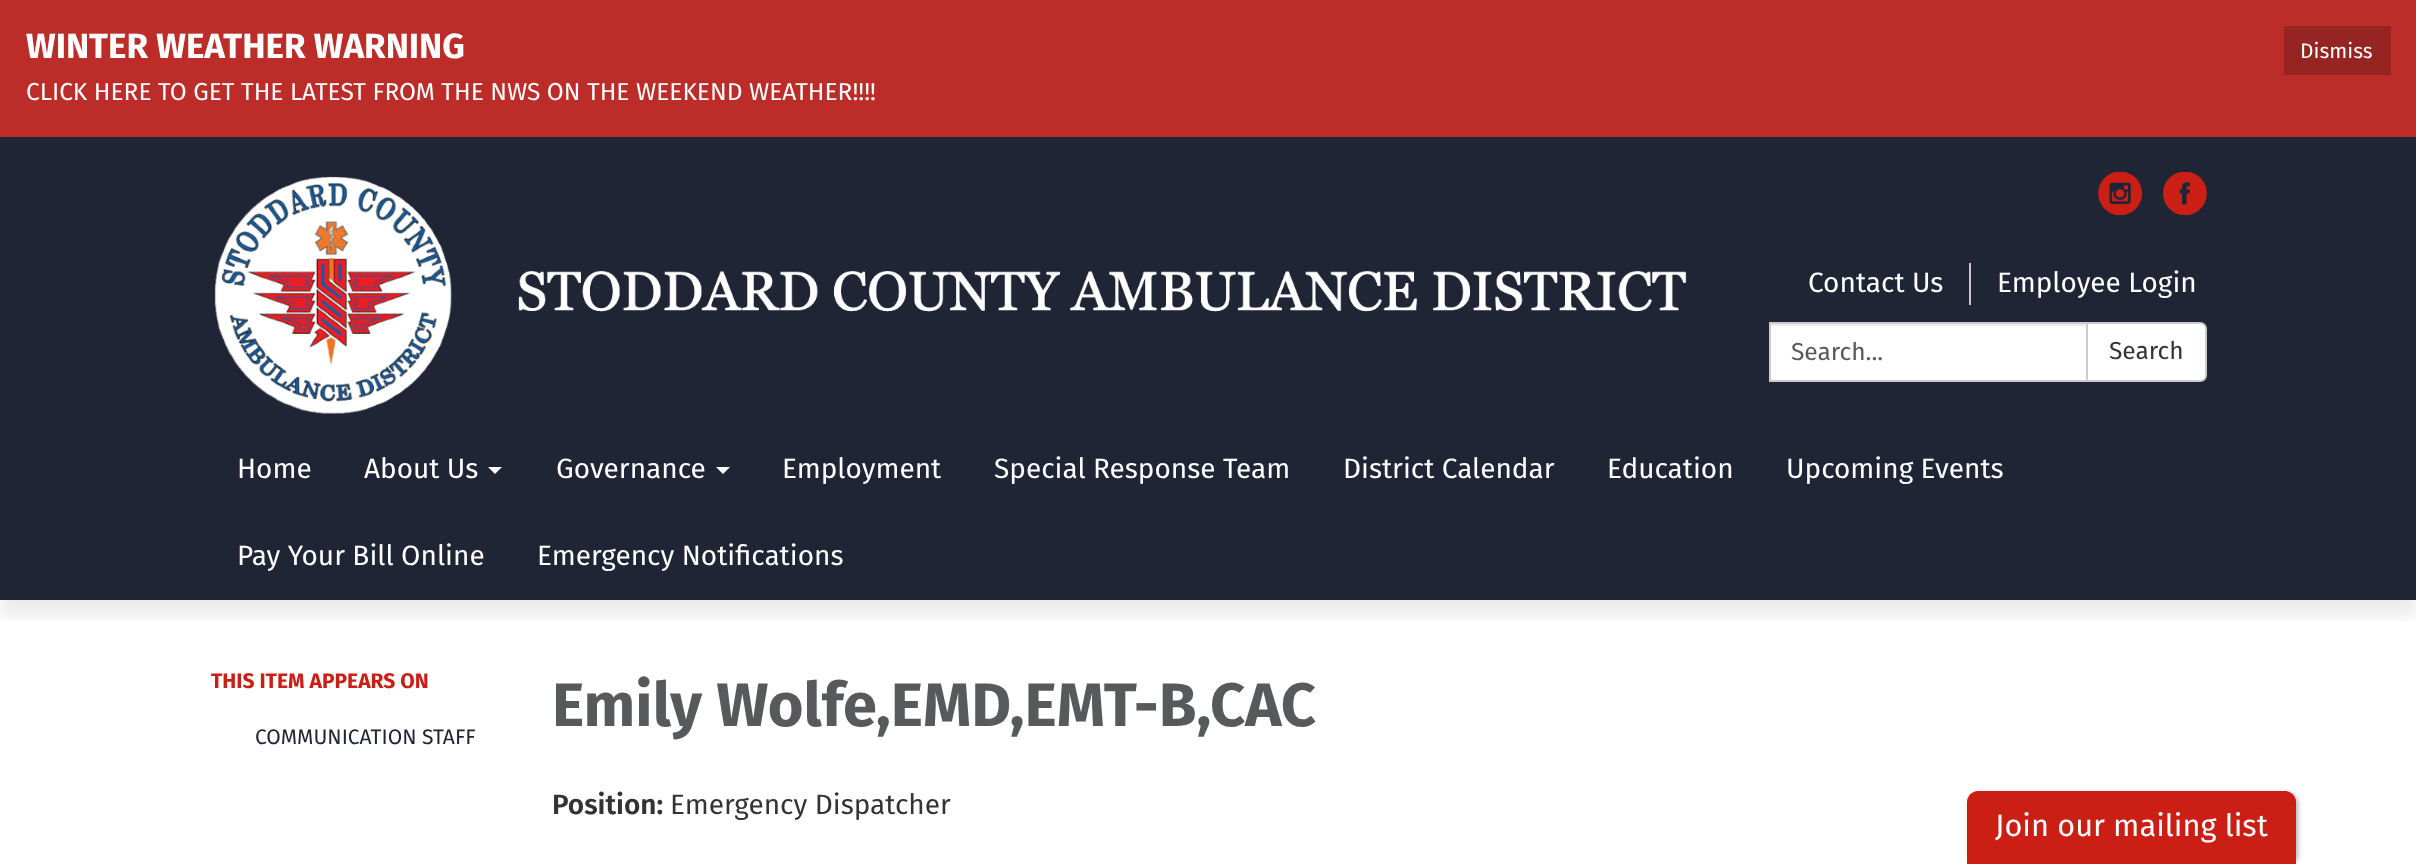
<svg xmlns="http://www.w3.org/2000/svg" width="2416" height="864">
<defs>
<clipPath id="clip1"><rect x="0" y="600" width="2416" height="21"/></clipPath>
</defs>
<rect width="100%" height="100%" fill="#202535"/>
<rect width="2416" height="137" fill="#bc2d2a"/>
<text x="26" y="58" style="font-family:Fira Sans;font-size:35px;font-weight:bold;fill:#fff">WINTER WEATHER WARNING</text>
<rect x="2284" y="26" width="107" height="49" fill="#962422"/>
<text x="2300" y="58" style="font-family:Fira Sans;font-size:21px;fill:#fff">Dismiss</text>
<text x="26" y="100" style="font-family:Fira Sans;font-size:24.5px;fill:#fff">CLICK HERE TO GET THE LATEST FROM THE NWS ON THE WEEKEND WEATHER!!!!</text>
<image x="214" y="176" width="1473" height="238" href="media/1.png"/>
<image x="2098" y="172" width="44" height="43" href="media/2.png"/>
<image x="2163" y="172" width="44" height="43" href="media/3.png"/>
<text x="1808" y="292" style="font-family:Fira Sans;font-size:28px;fill:#fff">Contact Us</text>
<rect x="1969" y="263" width="2" height="42" fill="#c8c9cb"/>
<text x="1997" y="292" style="font-family:Fira Sans;font-size:28px;fill:#fff">Employee Login</text>
<rect x="1771" y="326" width="315" height="54" fill="#fff"/>
<rect x="1771" y="324" width="315" height="2" fill="#ececec"/>
<rect x="1770" y="323" width="317" height="58" fill="none" stroke="#ccc" stroke-width="2"/>
<text x="1791" y="360" style="font-family:Fira Sans;font-size:24.5px;fill:#58595b">Search...</text>
<path d="M2087 323h113c3.5 0 6 2.5 6 6v46c0 3.5-2.5 6-6 6h-113z" fill="#fff" stroke="#ccc" stroke-width="2"/>
<text x="2109" y="359" style="font-family:Fira Sans;font-size:24.5px;fill:#333">Search</text>
<rect y="600" width="2416" height="264" fill="#fff"/>
<g clip-path="url(#clip1)">
<rect y="441" width="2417" height="175" fill="#00000014" filter="blur(8px)"/>
</g>
<text x="237" y="478" style="font-family:Fira Sans;font-size:28px;fill:#fff">Home</text>
<text x="364" y="478" style="font-family:Fira Sans;font-size:28px;fill:#fff">About Us</text>
<path d="M488 467h14l-7 7z" fill="#fff"/>
<text x="556" y="478" style="font-family:Fira Sans;font-size:28px;fill:#fff">Governance</text>
<path d="M716 467h14l-7 7z" fill="#fff"/>
<text x="782" y="478" style="font-family:Fira Sans;font-size:28px;fill:#fff">Employment</text>
<text x="994" y="478" style="font-family:Fira Sans;font-size:28px;fill:#fff">Special Response Team</text>
<text x="1343" y="478" style="font-family:Fira Sans;font-size:28px;fill:#fff">District Calendar</text>
<text x="1607" y="478" style="font-family:Fira Sans;font-size:28px;fill:#fff">Education</text>
<text x="1786" y="478" style="font-family:Fira Sans;font-size:28px;fill:#fff">Upcoming Events</text>
<text x="237" y="565" style="font-family:Fira Sans;font-size:28px;fill:#fff">Pay Your Bill Online</text>
<text x="537" y="565" style="font-family:Fira Sans;font-size:28px;fill:#fff">Emergency Notifications</text>
<text x="211" y="688" style="font-family:Fira Sans;font-size:21px;font-weight:bold;fill:#cb1f15">THIS ITEM APPEARS ON</text>
<text x="255" y="744" style="font-family:Fira Sans;font-size:21px;fill:#202535">COMMUNICATION STAFF</text>
<text x="552" y="726" style="font-family:Fira Sans;font-size:61.25px;font-weight:bold;fill:#58595b">Emily Wolfe,EMD,EMT-B,CAC</text>
<text x="552" y="814" style="font-family:Fira Sans;font-size:28px;font-weight:600;fill:#333">Position:</text>
<text x="670" y="814" style="font-family:Fira Sans;font-size:28px;fill:#333">Emergency Dispatcher</text>
<rect x="1969" y="793" width="329" height="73" rx="11" fill="#0000004d" filter="blur(2.5px)"/>
<path d="M1978 791h307c6 0 11 5 11 11v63h-329v-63c0-6 5-11 11-11z" fill="#cb1f15"/>
<text x="1995" y="836" style="font-family:Fira Sans;font-size:30.75px;fill:#fff">Join our mailing list</text>
</svg>
